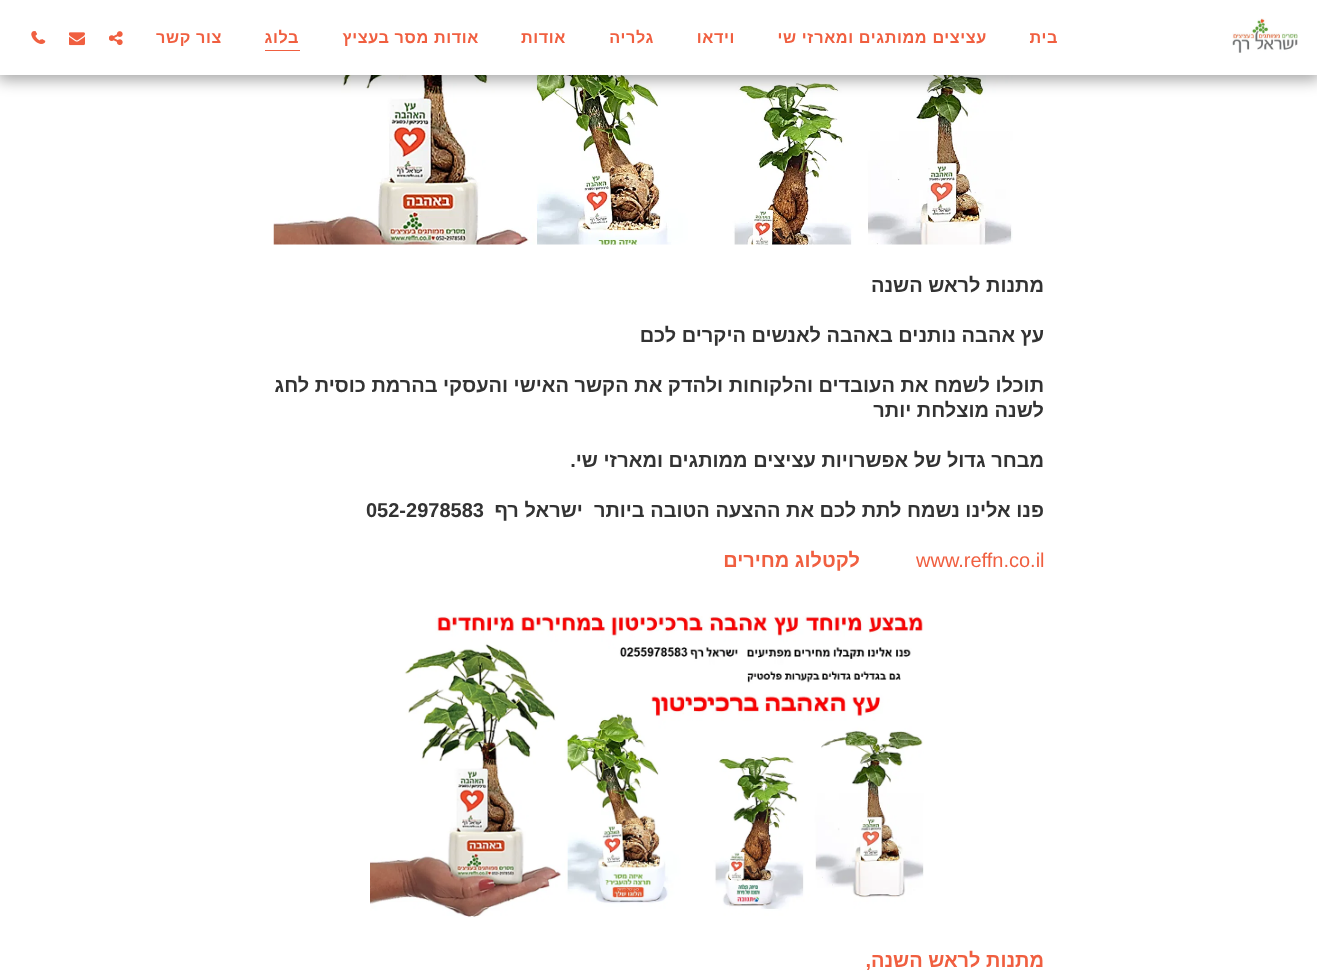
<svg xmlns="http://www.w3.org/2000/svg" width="1317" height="975">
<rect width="100%" height="100%" fill="#fff"/>
<image x="273" y="75" width="740" height="170" href="media/6.png"/>
<rect x="-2" width="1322" height="80" fill="#00000059" filter="blur(7.5px)"/>
<rect width="1317" height="75" fill="#fff"/>
<image x="1232" y="18" width="66" height="35" href="media/1.png"/>
<text x="1058" y="43" style="font-family:Liberation Sans;font-size:16.25px;font-weight:bold;letter-spacing:0.6px;direction:rtl;fill:#f05f40">בית</text>
<text x="987" y="43" style="font-family:Liberation Sans;font-size:16.25px;font-weight:bold;letter-spacing:0.6px;direction:rtl;fill:#f05f40">עציצים ממותגים ומארזי שי</text>
<text x="735" y="43" style="font-family:Liberation Sans;font-size:16.25px;font-weight:bold;letter-spacing:0.6px;direction:rtl;fill:#f05f40">וידאו</text>
<text x="654" y="43" style="font-family:Liberation Sans;font-size:16.25px;font-weight:bold;letter-spacing:0.6px;direction:rtl;fill:#f05f40">גלריה</text>
<text x="566" y="43" style="font-family:Liberation Sans;font-size:16.25px;font-weight:bold;letter-spacing:0.6px;direction:rtl;fill:#f05f40">אודות</text>
<text x="479" y="43" style="font-family:Liberation Sans;font-size:16.25px;font-weight:bold;letter-spacing:0.6px;direction:rtl;fill:#f05f40">אודות מסר בעציץ</text>
<text x="299" y="43" style="font-family:Liberation Sans;font-size:16.25px;font-weight:bold;letter-spacing:0.6px;direction:rtl;fill:#f05f40">בלוג</text>
<rect x="265" y="50" width="35" height="1" fill="#f05f40"/>
<text x="222" y="43" style="font-family:Liberation Sans;font-size:16.25px;font-weight:bold;letter-spacing:0.6px;direction:rtl;fill:#f05f40">צור קשר</text>
<image x="109" y="31" width="14" height="15" href="media/2.png"/>
<image x="69" y="32" width="16" height="14" href="media/3.png"/>
<image x="31" y="31" width="13" height="13" href="media/4.png"/>
<image x="33" y="31" width="13" height="13" href="media/5.png"/>
<text x="1044" y="292" style="font-family:Liberation Sans;font-size:20px;font-weight:bold;direction:rtl;fill:#333">מתנות לראש השנה</text>
<text x="1044" y="342" style="font-family:Liberation Sans;font-size:20px;font-weight:bold;direction:rtl;fill:#333">עץ אהבה נותנים באהבה לאנשים היקרים לכם</text>
<text x="1044" y="392" style="font-family:Liberation Sans;font-size:20px;font-weight:bold;direction:rtl;fill:#333">תוכלו לשמח את העובדים והלקוחות ולהדק את הקשר האישי והעסקי בהרמת כוסית לחג</text>
<text x="1044" y="417" style="font-family:Liberation Sans;font-size:20px;font-weight:bold;direction:rtl;fill:#333">לשנה מוצלחת יותר</text>
<text x="1044" y="467" style="font-family:Liberation Sans;font-size:20px;font-weight:bold;direction:rtl;fill:#333">מבחר גדול של אפשרויות עציצים ממותגים ומארזי שי.</text>
<text x="1044" y="517" style="font-family:Liberation Sans;font-size:20px;font-weight:bold;direction:rtl;fill:#333" xml:space="preserve">פנו אלינו נשמח לתת לכם את ההצעה הטובה ביותר  ישראל רף</text>
<text x="366" y="517" style="font-family:Liberation Sans;font-size:20px;font-weight:bold;fill:#333">052-2978583</text>
<text x="916" y="567" style="font-family:Liberation Sans;font-size:20px;fill:#f05f40">www.reffn.co.il</text>
<text x="860" y="567" style="font-family:Liberation Sans;font-size:20px;font-weight:bold;direction:rtl;fill:#f05f40">לקטלוג מחירים</text>
<image x="370" y="616" width="554" height="302" href="media/7.png"/>
<text x="1044" y="967" style="font-family:Liberation Sans;font-size:20px;font-weight:bold;direction:rtl;fill:#f05f40">מתנות לראש השנה,</text>
</svg>
